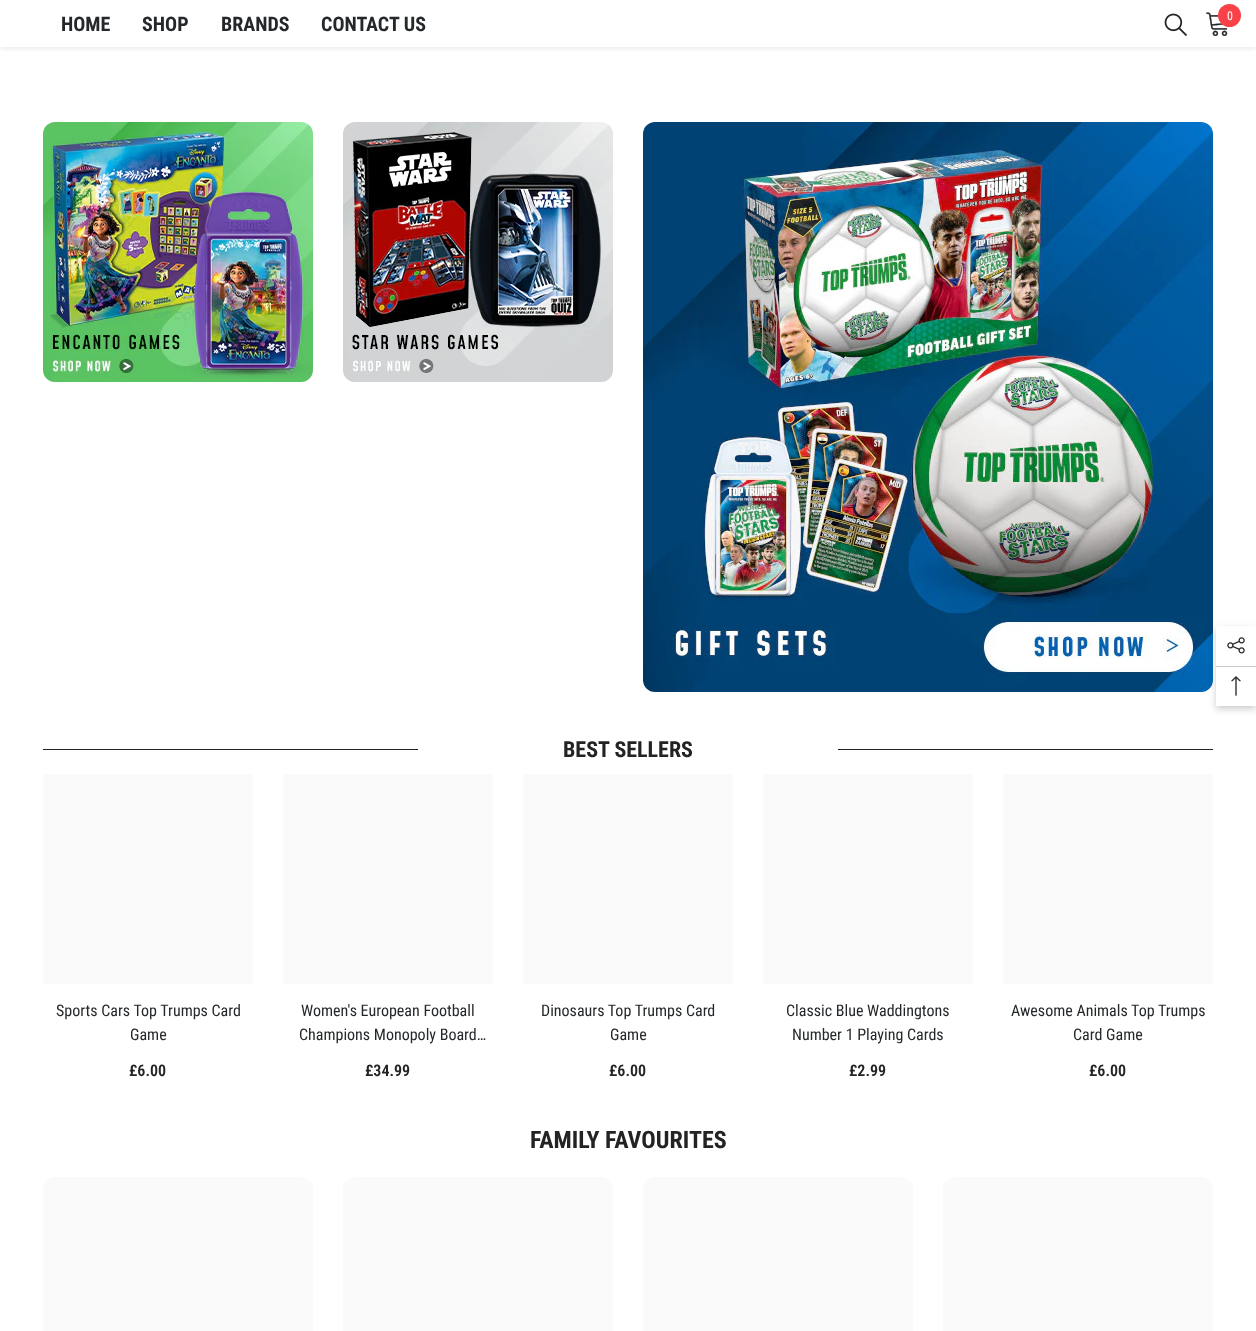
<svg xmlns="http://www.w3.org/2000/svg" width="1256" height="1331">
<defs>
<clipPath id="clip1"><rect x="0" y="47" width="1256" height="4"/></clipPath>
<clipPath id="clip2"><path d="M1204 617h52v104h-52zm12 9h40v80h-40z" clip-rule="evenodd"/></clipPath>
</defs>
<rect width="100%" height="100%" fill="#fff"/>
<g clip-path="url(#clip1)">
<rect y="1" width="1256" height="47" fill="#0000001a" filter="blur(3px)"/>
</g>
<text x="61" y="31" style="font-family:Roboto Condensed;font-size:20px;font-weight:bold;fill:#25282a">HOME</text>
<text x="142" y="31" style="font-family:Roboto Condensed;font-size:20px;font-weight:bold;fill:#25282a">SHOP</text>
<text x="221" y="31" style="font-family:Roboto Condensed;font-size:20px;font-weight:bold;fill:#25282a">BRANDS</text>
<text x="321" y="31" style="font-family:Roboto Condensed;font-size:20px;font-weight:bold;fill:#25282a">CONTACT US</text>
<image x="1164" y="13" width="23" height="23" href="media/1.png"/>
<image x="1206" y="12" width="22" height="24" href="media/2.png"/>
<circle cx="1229.5" cy="15.5" r="11.5" fill="#f84248"/>
<text x="1227" y="20" style="font-family:Roboto Condensed;font-size:12px;fill:#fff">0</text>
<image x="43" y="122" width="270" height="260" href="media/3.png"/>
<image x="343" y="122" width="270" height="260" href="media/4.png"/>
<image x="643" y="122" width="570" height="570" href="media/5.png"/>
<rect x="43" y="749" width="1170" height="1" fill="#232323"/>
<rect x="418" y="749" width="420" height="1" fill="#fff"/>
<text x="563" y="757" style="font-family:Roboto Condensed;font-size:22px;font-weight:bold;fill:#232323">BEST SELLERS</text>
<rect x="43" y="774" width="210" height="210" fill="#fafafa"/>
<text x="56" y="1016" style="font-family:Roboto Condensed;font-size:16px;fill:#25282a">Sports Cars Top Trumps Card</text>
<text x="130" y="1040" style="font-family:Roboto Condensed;font-size:16px;fill:#25282a">Game</text>
<text x="129" y="1076" style="font-family:Roboto Condensed;font-size:16px;font-weight:600;fill:#232323">£6.00</text>
<rect x="283" y="774" width="210" height="210" fill="#fafafa"/>
<text x="301" y="1016" style="font-family:Roboto Condensed;font-size:16px;fill:#25282a">Women's European Football</text>
<text x="299" y="1040" style="font-family:Roboto Condensed;font-size:16px;fill:#25282a">Champions Monopoly Board…</text>
<text x="365" y="1076" style="font-family:Roboto Condensed;font-size:16px;font-weight:600;fill:#232323">£34.99</text>
<rect x="523" y="774" width="210" height="210" fill="#fafafa"/>
<text x="541" y="1016" style="font-family:Roboto Condensed;font-size:16px;fill:#25282a">Dinosaurs Top Trumps Card</text>
<text x="610" y="1040" style="font-family:Roboto Condensed;font-size:16px;fill:#25282a">Game</text>
<text x="609" y="1076" style="font-family:Roboto Condensed;font-size:16px;font-weight:600;fill:#232323">£6.00</text>
<rect x="763" y="774" width="210" height="210" fill="#fafafa"/>
<text x="786" y="1016" style="font-family:Roboto Condensed;font-size:16px;fill:#25282a">Classic Blue Waddingtons</text>
<text x="792" y="1040" style="font-family:Roboto Condensed;font-size:16px;fill:#25282a">Number 1 Playing Cards</text>
<text x="849" y="1076" style="font-family:Roboto Condensed;font-size:16px;font-weight:600;fill:#232323">£2.99</text>
<rect x="1003" y="774" width="210" height="210" fill="#fafafa"/>
<text x="1011" y="1016" style="font-family:Roboto Condensed;font-size:16px;fill:#25282a">Awesome Animals Top Trumps</text>
<text x="1073" y="1040" style="font-family:Roboto Condensed;font-size:16px;fill:#25282a">Card Game</text>
<text x="1089" y="1076" style="font-family:Roboto Condensed;font-size:16px;font-weight:600;fill:#232323">£6.00</text>
<text x="530" y="1148" style="font-family:Roboto Condensed;font-size:24px;font-weight:bold;fill:#232323">FAMILY FAVOURITES</text>
<rect x="43" y="1177" width="270" height="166" rx="12" fill="#fafafa"/>
<rect x="343" y="1177" width="270" height="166" rx="12" fill="#fafafa"/>
<rect x="643" y="1177" width="270" height="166" rx="12" fill="#fafafa"/>
<rect x="943" y="1177" width="270" height="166" rx="12" fill="#fafafa"/>
<g clip-path="url(#clip2)">
<rect x="1216" y="629" width="40" height="80" fill="#00000033" filter="blur(3.5px)"/>
</g>
<image x="1227" y="637" width="18" height="17" href="media/6.png"/>
<rect x="1216" y="666" width="40" height="1" fill="#ccc"/>
<image x="1231" y="676" width="10" height="20" href="media/7.png"/>
</svg>
